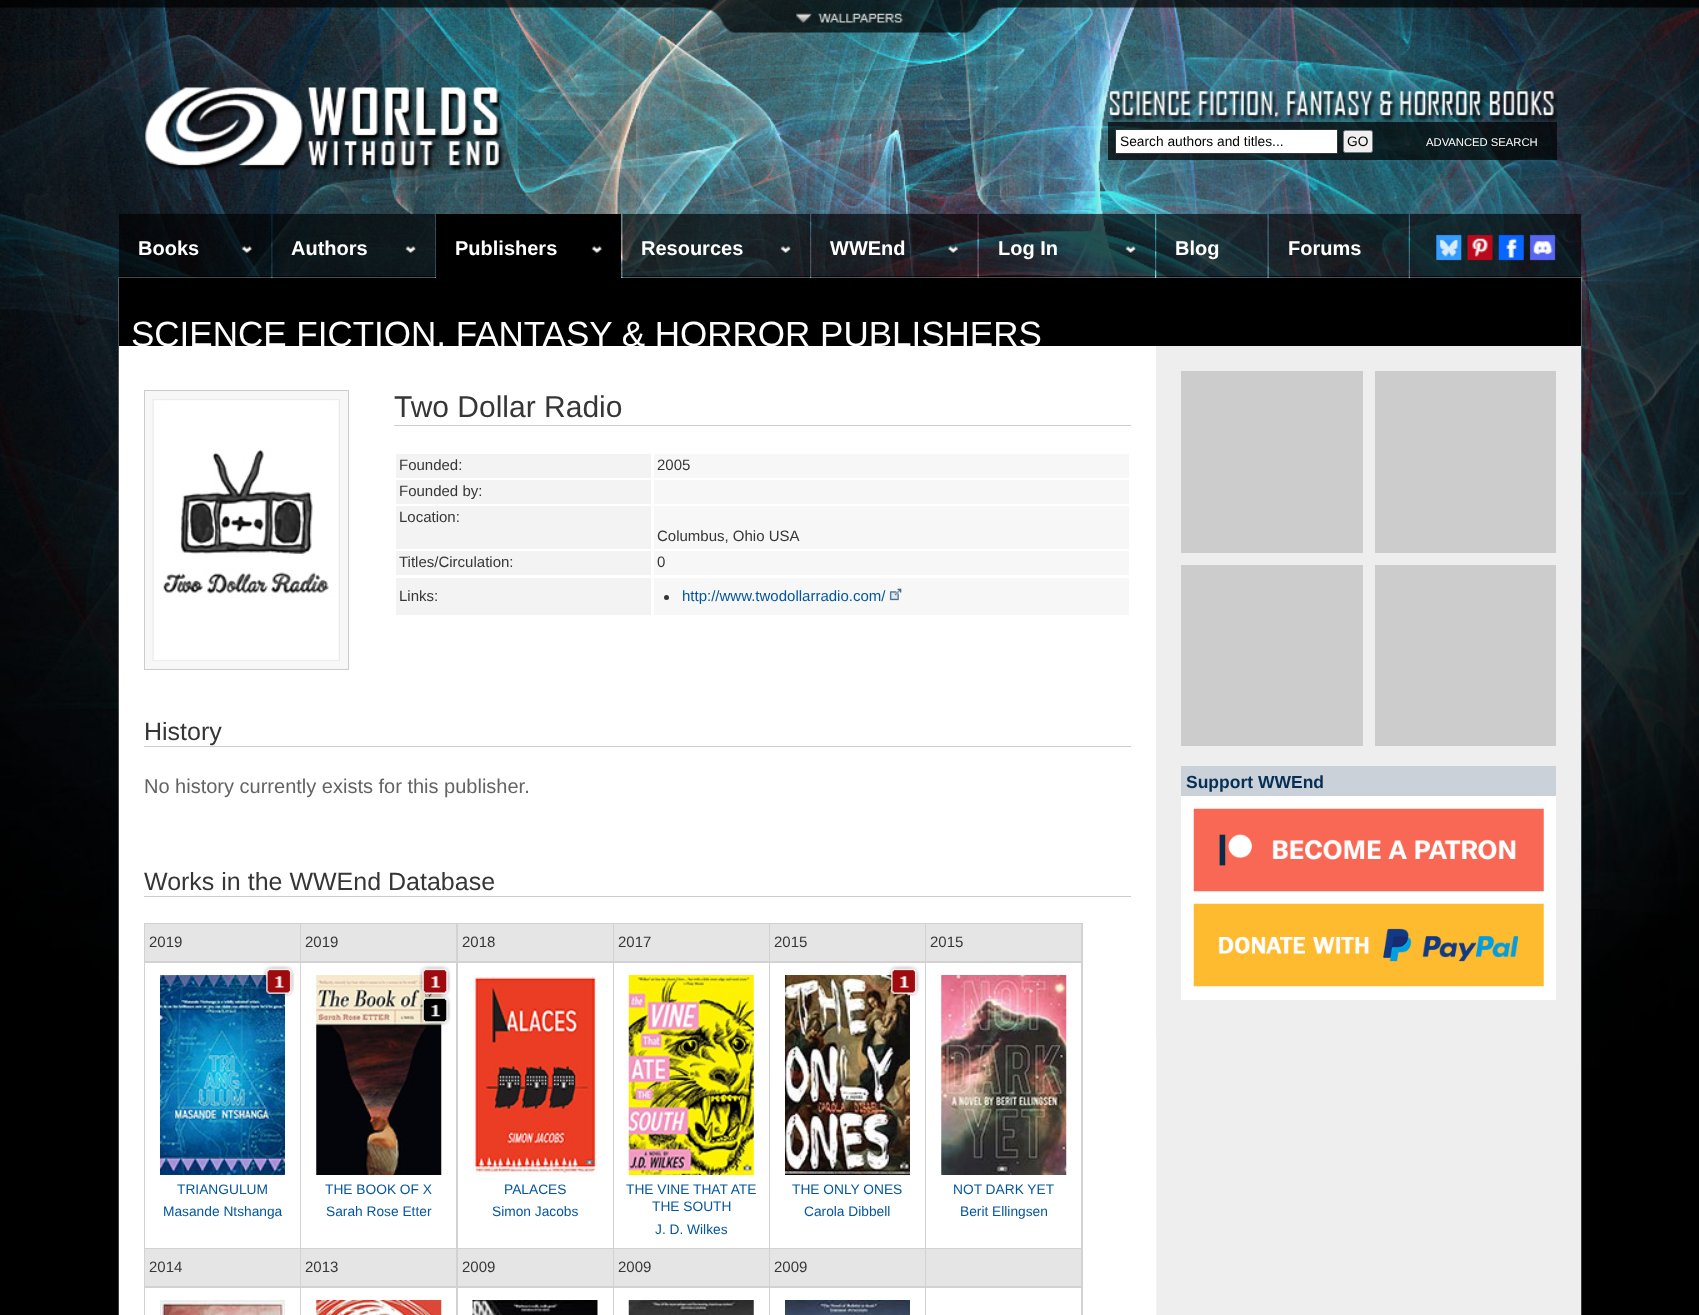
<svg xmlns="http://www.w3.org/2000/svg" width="1699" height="1315">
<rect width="100%" height="100%" fill="#000"/>
<image x="0" y="0" width="1699" height="1212" href="media/1.png"/>
<image x="0" y="0" width="1699" height="8" href="media/2.png"/>
<image x="119" y="0" width="1462" height="33" href="media/3.png"/>
<image x="796" y="13" width="107" height="10" href="media/4.png"/>
<image x="144" y="87" width="1414" height="84" href="media/5.png"/>
<rect x="1108" y="122" width="449" height="38" fill="#000000b3"/>
<rect x="1115.5" y="129.5" width="222" height="24" fill="#fff" stroke="#333"/>
<text x="1120" y="146" style="font-family:Liberation Sans;font-size:13.75px;fill:#000">Search authors and titles...</text>
<rect x="1343.5" y="130.5" width="29" height="22" rx="2" fill="#efefef" stroke="#767676"/>
<text x="1347" y="146" style="font-family:Liberation Sans;font-size:13.75px;fill:#000">GO</text>
<text x="1426" y="146" style="font-family:Liberation Sans;font-size:11.25px;fill:#fff">ADVANCED SEARCH</text>
<image x="118" y="277" width="1464" height="1038" href="media/21.png"/>
<image x="119" y="213" width="153" height="65" href="media/6.png"/>
<image x="241" y="246" width="12" height="8" href="media/7.png"/>
<text x="138" y="255" style="font-family:Liberation Sans;font-size:20px;font-weight:bold;fill:#fff">Books</text>
<image x="272" y="213" width="163" height="65" href="media/8.png"/>
<image x="405" y="246" width="11" height="8" href="media/9.png"/>
<text x="291" y="255" style="font-family:Liberation Sans;font-size:20px;font-weight:bold;fill:#fff">Authors</text>
<rect x="436" y="214" width="185" height="64" fill="#000"/>
<image x="591" y="246" width="12" height="8" href="media/10.png"/>
<text x="455" y="255" style="font-family:Liberation Sans;font-size:20px;font-weight:bold;fill:#fff">Publishers</text>
<image x="622" y="213" width="188" height="65" href="media/11.png"/>
<image x="780" y="246" width="11" height="8" href="media/12.png"/>
<text x="641" y="255" style="font-family:Liberation Sans;font-size:20px;font-weight:bold;fill:#fff">Resources</text>
<image x="811" y="213" width="167" height="65" href="media/13.png"/>
<image x="947" y="246" width="12" height="8" href="media/14.png"/>
<text x="830" y="255" style="font-family:Liberation Sans;font-size:20px;font-weight:bold;fill:#fff">WWEnd</text>
<image x="978" y="213" width="177" height="65" href="media/15.png"/>
<image x="1125" y="246" width="11" height="8" href="media/16.png"/>
<text x="998" y="255" style="font-family:Liberation Sans;font-size:20px;font-weight:bold;fill:#fff">Log In</text>
<image x="1156" y="213" width="112" height="65" href="media/17.png"/>
<text x="1175" y="255" style="font-family:Liberation Sans;font-size:20px;font-weight:bold;fill:#fff">Blog</text>
<image x="1268" y="213" width="141" height="65" href="media/18.png"/>
<text x="1288" y="255" style="font-family:Liberation Sans;font-size:20px;font-weight:bold;fill:#fff">Forums</text>
<image x="1410" y="213" width="172" height="65" href="media/19.png"/>
<image x="1436" y="234" width="120" height="27" href="media/20.png"/>
<rect x="119" y="278" width="1462" height="68" fill="#000"/>
<text x="131" y="346" style="font-family:Liberation Sans;font-size:35px;fill:#fff">SCIENCE FICTION, FANTASY &amp; HORROR PUBLISHERS</text>
<rect x="144.5" y="390.5" width="204" height="279" fill="#f7f7f7" stroke="#ccc"/>
<image x="152" y="399" width="188" height="262" href="media/22.png"/>
<rect x="394" y="425" width="737" height="1" fill="#ccc"/>
<text x="394" y="417" style="font-family:Liberation Sans;font-size:30px;fill:#363636">Two Dollar Radio</text>
<rect x="396" y="454" width="255" height="24" fill="#f3f3f3"/>
<text x="399" y="470" style="font-family:Liberation Sans;font-size:15px;fill:#363636">Founded:</text>
<rect x="654" y="454" width="475" height="24" fill="#f7f7f7"/>
<text x="657" y="470" style="font-family:Liberation Sans;font-size:15px;fill:#363636">2005</text>
<rect x="396" y="480" width="255" height="24" fill="#f3f3f3"/>
<text x="399" y="496" style="font-family:Liberation Sans;font-size:15px;fill:#363636">Founded by:</text>
<rect x="654" y="480" width="475" height="24" fill="#f7f7f7"/>
<rect x="396" y="506" width="255" height="43" fill="#f3f3f3"/>
<text x="399" y="522" style="font-family:Liberation Sans;font-size:15px;fill:#363636">Location:</text>
<rect x="654" y="506" width="475" height="43" fill="#f7f7f7"/>
<text x="657" y="541" style="font-family:Liberation Sans;font-size:15px;fill:#363636">Columbus, Ohio USA</text>
<rect x="396" y="551" width="255" height="24" fill="#f3f3f3"/>
<text x="399" y="567" style="font-family:Liberation Sans;font-size:15px;fill:#363636">Titles/Circulation:</text>
<rect x="654" y="551" width="475" height="24" fill="#f7f7f7"/>
<text x="657" y="567" style="font-family:Liberation Sans;font-size:15px;fill:#363636">0</text>
<rect x="396" y="578" width="255" height="37" fill="#f3f3f3"/>
<text x="399" y="601" style="font-family:Liberation Sans;font-size:15px;fill:#363636">Links:</text>
<rect x="654" y="578" width="475" height="37" fill="#f7f7f7"/>
<circle cx="666.5" cy="597.5" r="2.5" fill="#363636"/>
<text x="682" y="601" style="font-family:Liberation Sans;font-size:15px;fill:#03569d">http://www.twodollarradio.com/</text>
<image x="889" y="588" width="13" height="13" href="media/23.png"/>
<rect x="144" y="746" width="987" height="1" fill="#ccc"/>
<text x="144" y="740" style="font-family:Liberation Sans;font-size:25px;fill:#363636">History</text>
<text x="144" y="793" style="font-family:Liberation Sans;font-size:20px;fill:#636363">No history currently exists for this publisher.</text>
<rect x="144" y="896" width="987" height="1" fill="#ccc"/>
<text x="144" y="890" style="font-family:Liberation Sans;font-size:25px;fill:#363636">Works in the WWEnd Database</text>
<rect x="144" y="923" width="939" height="392" fill="#d2d2d2"/>
<rect x="145" y="963" width="155" height="285" fill="#fff"/>
<rect x="145" y="924" width="155" height="37" fill="#e5e5e5"/>
<text x="149" y="947" style="font-family:Liberation Sans;font-size:15px;fill:#363636">2019</text>
<image x="160" y="975" width="125" height="200" href="media/25.png"/>
<image x="263" y="965" width="32" height="32" href="media/24.png"/>
<text x="177" y="1194" style="font-family:Liberation Sans;font-size:13.75px;fill:#03569d">TRIANGULUM</text>
<text x="163" y="1216" style="font-family:Liberation Sans;font-size:13.75px;fill:#03569d">Masande Ntshanga</text>
<rect x="301" y="963" width="155" height="285" fill="#fff"/>
<rect x="301" y="924" width="155" height="37" fill="#e5e5e5"/>
<text x="305" y="947" style="font-family:Liberation Sans;font-size:15px;fill:#363636">2019</text>
<image x="316" y="975" width="126" height="200" href="media/27.png"/>
<image x="419" y="965" width="32" height="32" href="media/26.png"/>
<image x="419" y="994" width="32" height="32" href="media/28.png"/>
<text x="325" y="1194" style="font-family:Liberation Sans;font-size:13.75px;fill:#03569d">THE BOOK OF X</text>
<text x="326" y="1216" style="font-family:Liberation Sans;font-size:13.75px;fill:#03569d">Sarah Rose Etter</text>
<rect x="458" y="963" width="155" height="285" fill="#fff"/>
<rect x="458" y="924" width="155" height="37" fill="#e5e5e5"/>
<text x="462" y="947" style="font-family:Liberation Sans;font-size:15px;fill:#363636">2018</text>
<image x="472" y="975" width="126" height="200" href="media/29.png"/>
<text x="504" y="1194" style="font-family:Liberation Sans;font-size:13.75px;fill:#03569d">PALACES</text>
<text x="492" y="1216" style="font-family:Liberation Sans;font-size:13.75px;fill:#03569d">Simon Jacobs</text>
<rect x="614" y="924" width="155" height="37" fill="#e5e5e5"/>
<text x="618" y="947" style="font-family:Liberation Sans;font-size:15px;fill:#363636">2017</text>
<rect x="614" y="963" width="155" height="285" fill="#fff"/>
<image x="628" y="975" width="126" height="200" href="media/30.png"/>
<text x="626" y="1194" style="font-family:Liberation Sans;font-size:13.75px;fill:#03569d">THE VINE THAT ATE</text>
<text x="652" y="1211" style="font-family:Liberation Sans;font-size:13.75px;fill:#03569d">THE SOUTH</text>
<text x="655" y="1234" style="font-family:Liberation Sans;font-size:13.75px;fill:#03569d">J. D. Wilkes</text>
<rect x="770" y="963" width="155" height="285" fill="#fff"/>
<rect x="770" y="924" width="155" height="37" fill="#e5e5e5"/>
<text x="774" y="947" style="font-family:Liberation Sans;font-size:15px;fill:#363636">2015</text>
<image x="785" y="975" width="125" height="200" href="media/32.png"/>
<image x="888" y="965" width="32" height="32" href="media/31.png"/>
<text x="792" y="1194" style="font-family:Liberation Sans;font-size:13.75px;fill:#03569d">THE ONLY ONES</text>
<text x="804" y="1216" style="font-family:Liberation Sans;font-size:13.75px;fill:#03569d">Carola Dibbell</text>
<rect x="926" y="963" width="155" height="285" fill="#fff"/>
<rect x="926" y="924" width="155" height="37" fill="#e5e5e5"/>
<text x="930" y="947" style="font-family:Liberation Sans;font-size:15px;fill:#363636">2015</text>
<image x="941" y="975" width="126" height="200" href="media/33.png"/>
<text x="953" y="1194" style="font-family:Liberation Sans;font-size:13.75px;fill:#03569d">NOT DARK YET</text>
<text x="960" y="1216" style="font-family:Liberation Sans;font-size:13.75px;fill:#03569d">Berit Ellingsen</text>
<rect x="145" y="1249" width="155" height="37" fill="#e5e5e5"/>
<text x="149" y="1272" style="font-family:Liberation Sans;font-size:15px;fill:#363636">2014</text>
<rect x="145" y="1288" width="155" height="27" fill="#fff"/>
<image x="160" y="1300" width="125" height="15" href="media/34.png"/>
<rect x="301" y="1249" width="155" height="37" fill="#e5e5e5"/>
<text x="305" y="1272" style="font-family:Liberation Sans;font-size:15px;fill:#363636">2013</text>
<rect x="301" y="1288" width="155" height="27" fill="#fff"/>
<image x="316" y="1300" width="126" height="15" href="media/35.png"/>
<rect x="458" y="1249" width="155" height="37" fill="#e5e5e5"/>
<text x="462" y="1272" style="font-family:Liberation Sans;font-size:15px;fill:#363636">2009</text>
<rect x="458" y="1288" width="155" height="27" fill="#fff"/>
<image x="472" y="1300" width="126" height="15" href="media/36.png"/>
<rect x="614" y="1249" width="155" height="37" fill="#e5e5e5"/>
<text x="618" y="1272" style="font-family:Liberation Sans;font-size:15px;fill:#363636">2009</text>
<rect x="614" y="1288" width="155" height="27" fill="#fff"/>
<image x="628" y="1300" width="126" height="15" href="media/37.png"/>
<rect x="770" y="1249" width="155" height="37" fill="#e5e5e5"/>
<text x="774" y="1272" style="font-family:Liberation Sans;font-size:15px;fill:#363636">2009</text>
<rect x="770" y="1288" width="155" height="27" fill="#fff"/>
<image x="785" y="1300" width="125" height="15" href="media/38.png"/>
<rect x="926" y="1249" width="155" height="37" fill="#e5e5e5"/>
<rect x="926" y="1288" width="155" height="27" fill="#fff"/>
<rect x="1156" y="346" width="1" height="692" fill="#eee"/>
<rect x="1181" y="371" width="182" height="182" fill="#ccc"/>
<rect x="1375" y="371" width="181" height="182" fill="#ccc"/>
<rect x="1181" y="565" width="182" height="181" fill="#ccc"/>
<rect x="1375" y="565" width="181" height="181" fill="#ccc"/>
<rect x="1181" y="766" width="375" height="30" fill="#cad1d9"/>
<text x="1186" y="788" style="font-family:Liberation Sans;font-size:17.5px;font-weight:bold;fill:#062f54">Support WWEnd</text>
<rect x="1181" y="796" width="375" height="204" fill="#fff"/>
<image x="1193" y="808" width="351" height="84" href="media/39.png"/>
<image x="1193" y="903" width="351" height="84" href="media/40.png"/>
</svg>
